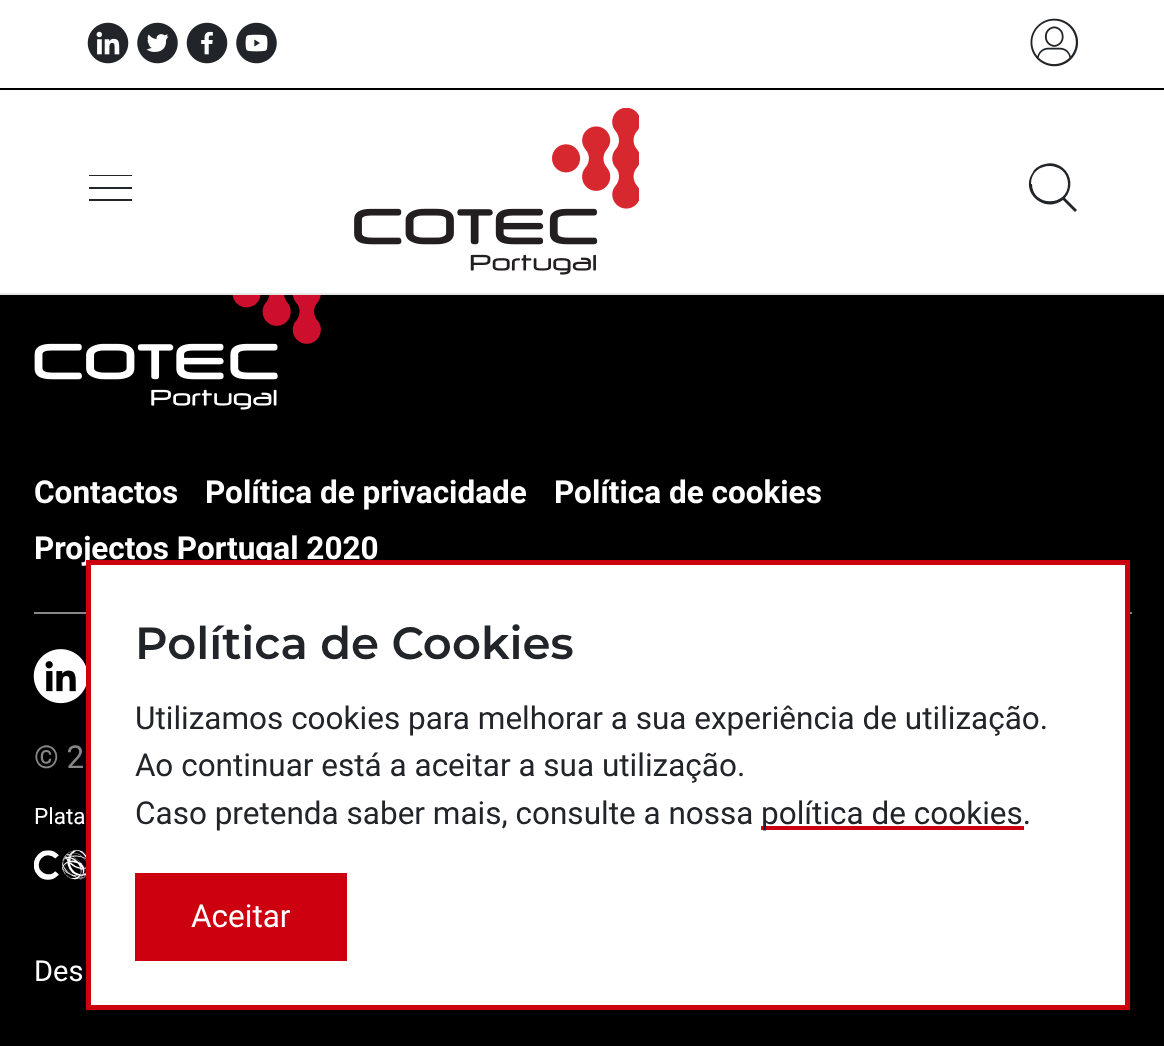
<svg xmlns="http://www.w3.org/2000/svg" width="1164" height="1046">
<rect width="100%" height="100%" fill="#000"/>
<rect width="1164" height="293" fill="#fff"/>
<rect y="88" width="1164" height="2" fill="#000"/>
<image x="87" y="22" width="42" height="42" href="media/1.png"/>
<image x="137" y="22" width="41" height="42" href="media/2.png"/>
<image x="186" y="22" width="42" height="42" href="media/3.png"/>
<image x="236" y="22" width="41" height="42" href="media/4.png"/>
<image x="1030" y="18" width="49" height="49" href="media/5.png"/>
<rect y="293" width="1164" height="2" fill="#e6e6e6"/>
<path d="M89 175h43v1h-43zm0 12h43v2h-43zm0 12h43v2h-43z" fill="#212529"/>
<image x="354" y="108" width="285" height="167" href="media/6.png"/>
<path d="M1077 210l-12-12c8-9 7-23-2-30c-5-4-12-6-18-4c-5 1-10 4-12 8c-14 20 11 42 30 28l12 12zm-46-26c0-24 37-24 37 0c0 23-36 23-36 0z" fill="#212529"/>
<image x="34" y="295" width="287" height="115" href="media/7.png"/>
<text x="34" y="503" style="font-family:Roboto;font-size:31.5px;font-weight:bold;fill:#fff">Contactos</text>
<text x="205" y="503" style="font-family:Roboto;font-size:31.5px;font-weight:bold;fill:#fff">Política de privacidade</text>
<text x="554" y="503" style="font-family:Roboto;font-size:31.5px;font-weight:bold;fill:#fff">Política de cookies</text>
<text x="34" y="559" style="font-family:Roboto;font-size:31.5px;font-weight:bold;fill:#fff">Projectos Portugal 2020</text>
<rect x="34" y="612" width="1098" height="2" fill="#878787"/>
<image x="33" y="649" width="53" height="55" href="media/8.png"/>
<text x="34" y="768" style="font-family:Roboto;font-size:31.5px;fill:#878787">© 2</text>
<text x="34" y="824" style="font-family:Roboto;font-size:22.5px;fill:#fff">Plata</text>
<image x="34" y="850" width="52" height="30" href="media/9.png"/>
<text x="34" y="981" style="font-family:Roboto;font-size:29px;fill:#fff">Des</text>
<rect x="88.5" y="562.5" width="1039" height="445" fill="#fff" stroke="#cd0010" stroke-width="5"/>
<text x="135" y="659" style="font-family:Montserrat;font-size:45px;font-weight:600;fill:#212529">Política de Cookies</text>
<text x="135" y="729" style="font-family:Roboto;font-size:31.5px;fill:#212529">Utilizamos cookies para melhorar a sua experiência de utilização.</text>
<text x="135" y="776" style="font-family:Roboto;font-size:31.5px;fill:#212529">Ao continuar está a aceitar a sua utilização.</text>
<text x="135" y="824" style="font-family:Roboto;font-size:31.5px;fill:#212529">Caso pretenda saber mais, consulte a nossa</text>
<rect x="761" y="826" width="263" height="4" fill="#cd0010"/>
<text x="761" y="824" style="font-family:Roboto;font-size:31.5px;fill:#212529">política de cookies.</text>
<rect x="135" y="873" width="212" height="88" fill="#cd0010"/>
<text x="191" y="927" style="font-family:Roboto;font-size:31.5px;fill:#fff">Aceitar</text>
</svg>
